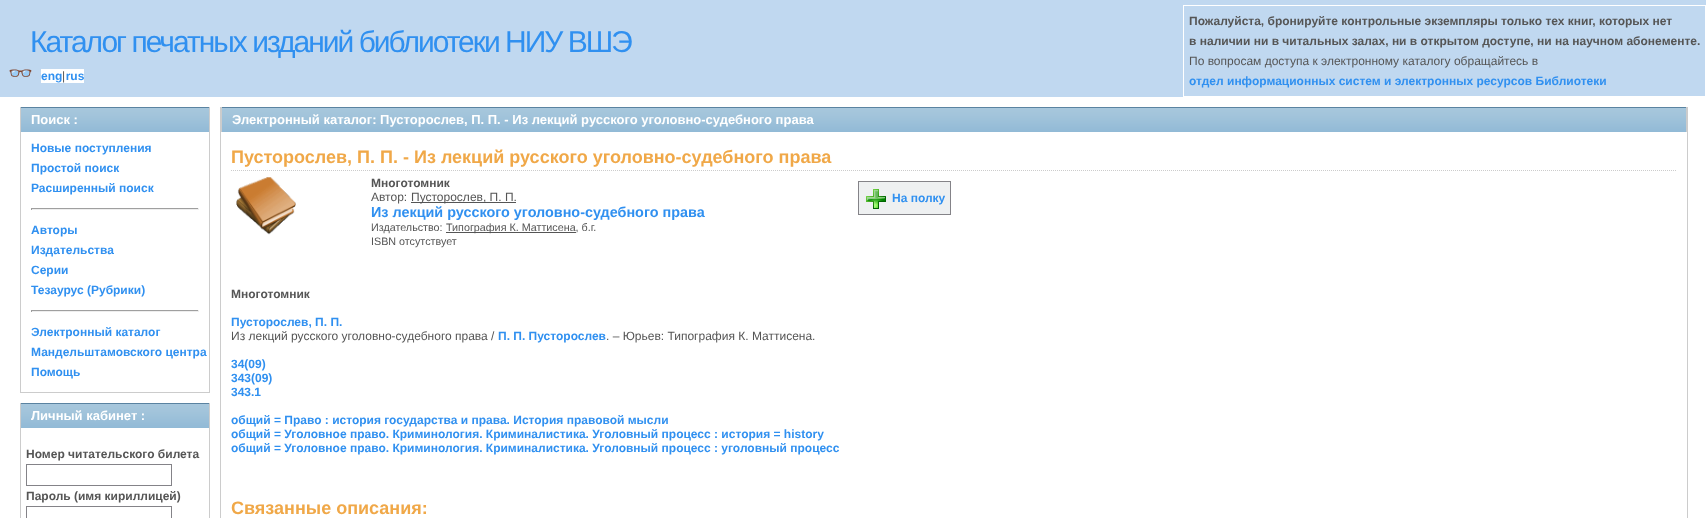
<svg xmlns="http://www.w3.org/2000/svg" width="1706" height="518">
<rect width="100%" height="100%" fill="#fff"/>
<rect width="1706" height="97" fill="#c0d8f0"/>
<text x="30" y="52" style="font-family:Liberation Sans;font-size:30px;letter-spacing:-2px;fill:#3090f0">Каталог печатных изданий библиотеки НИУ ВШЭ</text>
<text x="8" y="80" style="font-family:Noto Color Emoji;font-size:20px;font-weight:bold;fill:#3090f0">👓</text>
<rect x="41" y="69" width="43" height="14" fill="#fff"/>
<text x="41" y="80" style="font-family:Liberation Sans;font-size:12px;font-weight:bold;fill:#3090f0">eng rus</text>
<text x="62" y="80" style="font-family:Liberation Sans;font-size:12px;fill:#555">|</text>
<rect x="1183.5" y="5.5" width="522" height="91" fill="none" stroke="#fff"/>
<text x="1189" y="25" style="font-family:Liberation Sans;font-size:12px;font-weight:bold;fill:#555">Пожалуйста, бронируйте контрольные экземпляры только тех книг, которых нет</text>
<text x="1189" y="45" style="font-family:Liberation Sans;font-size:12px;font-weight:bold;fill:#555">в наличии ни в читальных залах, ни в открытом доступе, ни на научном абонементе.</text>
<text x="1189" y="65" style="font-family:Liberation Sans;font-size:12px;fill:#555">По вопросам доступа к электронному каталогу обращайтесь в</text>
<text x="1189" y="85" style="font-family:Liberation Sans;font-size:12px;font-weight:bold;fill:#3090f0">отдел информационных систем и электронных ресурсов Библиотеки</text>
<image x="21" y="107" width="188" height="25" href="media/1.png"/>
<rect x="209" y="107" width="1" height="286" fill="#ccc"/>
<rect x="20" y="107" width="1" height="25" fill="#ccc"/>
<text x="31" y="124" style="font-family:Liberation Sans;font-size:13px;font-weight:bold;fill:#fff">Поиск :</text>
<rect x="20" y="392" width="190" height="1" fill="#ccc"/>
<rect x="20" y="132" width="1" height="261" fill="#ccc"/>
<text x="31" y="152" style="font-family:Liberation Sans;font-size:12px;font-weight:bold;fill:#3090f0">Новые поступления</text>
<text x="31" y="172" style="font-family:Liberation Sans;font-size:12px;font-weight:bold;fill:#3090f0">Простой поиск</text>
<text x="31" y="192" style="font-family:Liberation Sans;font-size:12px;font-weight:bold;fill:#3090f0">Расширенный поиск</text>
<rect x="31" y="208" width="168" height="1" fill="#9f9f9f"/>
<rect x="198" y="208" width="1" height="2" fill="#eee"/>
<rect x="31" y="209" width="168" height="1" fill="#eee"/>
<rect x="31" y="208" width="1" height="2" fill="#9f9f9f"/>
<text x="31" y="234" style="font-family:Liberation Sans;font-size:12px;font-weight:bold;fill:#3090f0">Авторы</text>
<text x="31" y="254" style="font-family:Liberation Sans;font-size:12px;font-weight:bold;fill:#3090f0">Издательства</text>
<text x="31" y="274" style="font-family:Liberation Sans;font-size:12px;font-weight:bold;fill:#3090f0">Серии</text>
<text x="31" y="294" style="font-family:Liberation Sans;font-size:12px;font-weight:bold;fill:#3090f0">Тезаурус (Рубрики)</text>
<rect x="31" y="310" width="168" height="1" fill="#9f9f9f"/>
<rect x="198" y="310" width="1" height="2" fill="#eee"/>
<rect x="31" y="311" width="168" height="1" fill="#eee"/>
<rect x="31" y="310" width="1" height="2" fill="#9f9f9f"/>
<text x="31" y="336" style="font-family:Liberation Sans;font-size:12px;font-weight:bold;fill:#3090f0">Электронный каталог</text>
<text x="31" y="356" style="font-family:Liberation Sans;font-size:12px;font-weight:bold;fill:#3090f0">Мандельштамовского центра</text>
<text x="31" y="376" style="font-family:Liberation Sans;font-size:12px;font-weight:bold;fill:#3090f0">Помощь</text>
<image x="21" y="403" width="188" height="25" href="media/1.png"/>
<rect x="209" y="403" width="1" height="115" fill="#ccc"/>
<rect x="20" y="403" width="1" height="115" fill="#ccc"/>
<text x="31" y="420" style="font-family:Liberation Sans;font-size:13px;font-weight:bold;fill:#fff">Личный кабинет :</text>
<text x="26" y="458" style="font-family:Liberation Sans;font-size:12px;font-weight:bold;fill:#555">Номер читательского билета</text>
<rect x="26.5" y="464.5" width="145" height="21" fill="none" stroke="#848388"/>
<text x="26" y="500" style="font-family:Liberation Sans;font-size:12px;font-weight:bold;fill:#555">Пароль (имя кириллицей)</text>
<rect x="26.5" y="506.5" width="145" height="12" fill="none" stroke="#848388"/>
<rect x="1687" y="107" width="1" height="411" fill="#ccc"/>
<rect x="220" y="107" width="1" height="411" fill="#ccc"/>
<image x="222" y="107" width="1464" height="25" href="media/2.png"/>
<rect x="1686" y="107" width="1" height="25" fill="#ccc"/>
<rect x="221" y="107" width="1" height="25" fill="#ccc"/>
<text x="232" y="124" style="font-family:Liberation Sans;font-size:13px;font-weight:bold;fill:#fff">Электронный каталог: Пусторослев, П. П. - Из лекций русского уголовно-судебного права</text>
<path d="M231 170.5h1446" fill="none" stroke="#ccc" stroke-dasharray="1 1"/>
<text x="231" y="163" style="font-family:Liberation Sans;font-size:18px;font-weight:bold;fill:#f0a848">Пусторослев, П. П. - Из лекций русского уголовно-судебного права</text>
<image x="236" y="177" width="60" height="58" href="media/3.png"/>
<text x="371" y="187" style="font-family:Liberation Sans;font-size:12px;font-weight:bold;fill:#555">Многотомник</text>
<text x="371" y="201" style="font-family:Liberation Sans;font-size:12px;fill:#555">Автор:</text>
<rect x="411" y="202" width="105" height="1" fill="#555"/>
<text x="411" y="201" style="font-family:Liberation Sans;font-size:12px;fill:#555">Пусторослев, П. П.</text>
<text x="371" y="217" style="font-family:Liberation Sans;font-size:14.4px;font-weight:bold;fill:#3090f0">Из лекций русского уголовно-судебного права</text>
<text x="371" y="231" style="font-family:Liberation Sans;font-size:10.75px;fill:#555">Издательство:</text>
<rect x="446" y="232" width="130" height="1" fill="#555"/>
<text x="446" y="231" style="font-family:Liberation Sans;font-size:10.75px;fill:#555">Типография К. Маттисена, б.г.</text>
<text x="371" y="245" style="font-family:Liberation Sans;font-size:10.75px;fill:#555">ISBN отсутствует</text>
<rect x="858.5" y="181.5" width="92" height="33" fill="#eef0f1" stroke="#848388"/>
<image x="866" y="189" width="20" height="20" href="media/4.png"/>
<text x="892" y="202" style="font-family:Liberation Sans;font-size:12px;font-weight:bold;fill:#3090f0">На полку</text>
<text x="231" y="298" style="font-family:Liberation Sans;font-size:12px;font-weight:bold;fill:#555">Многотомник</text>
<text x="231" y="326" style="font-family:Liberation Sans;font-size:12px;font-weight:bold;fill:#3090f0">Пусторослев, П. П.</text>
<text x="231" y="340" style="font-family:Liberation Sans;font-size:12px;fill:#555">Из лекций русского уголовно-судебного права /</text>
<text x="498" y="340" style="font-family:Liberation Sans;font-size:12px;font-weight:bold;fill:#3090f0">П. П. Пусторослев</text>
<text x="606" y="340" style="font-family:Liberation Sans;font-size:12px;fill:#555">. – Юрьев: Типография К. Маттисена.</text>
<text x="231" y="368" style="font-family:Liberation Sans;font-size:12px;font-weight:bold;fill:#3090f0">34(09)</text>
<text x="231" y="382" style="font-family:Liberation Sans;font-size:12px;font-weight:bold;fill:#3090f0">343(09)</text>
<text x="231" y="396" style="font-family:Liberation Sans;font-size:12px;font-weight:bold;fill:#3090f0">343.1</text>
<text x="231" y="424" style="font-family:Liberation Sans;font-size:12px;font-weight:bold;fill:#3090f0">общий = Право : история государства и права. История правовой мысли</text>
<text x="231" y="438" style="font-family:Liberation Sans;font-size:12px;font-weight:bold;fill:#3090f0">общий = Уголовное право. Криминология. Криминалистика. Уголовный процесс : история = history</text>
<text x="231" y="452" style="font-family:Liberation Sans;font-size:12px;font-weight:bold;fill:#3090f0">общий = Уголовное право. Криминология. Криминалистика. Уголовный процесс : уголовный процесс</text>
<text x="231" y="514" style="font-family:Liberation Sans;font-size:18px;font-weight:bold;fill:#f0a848">Связанные описания:</text>
</svg>
